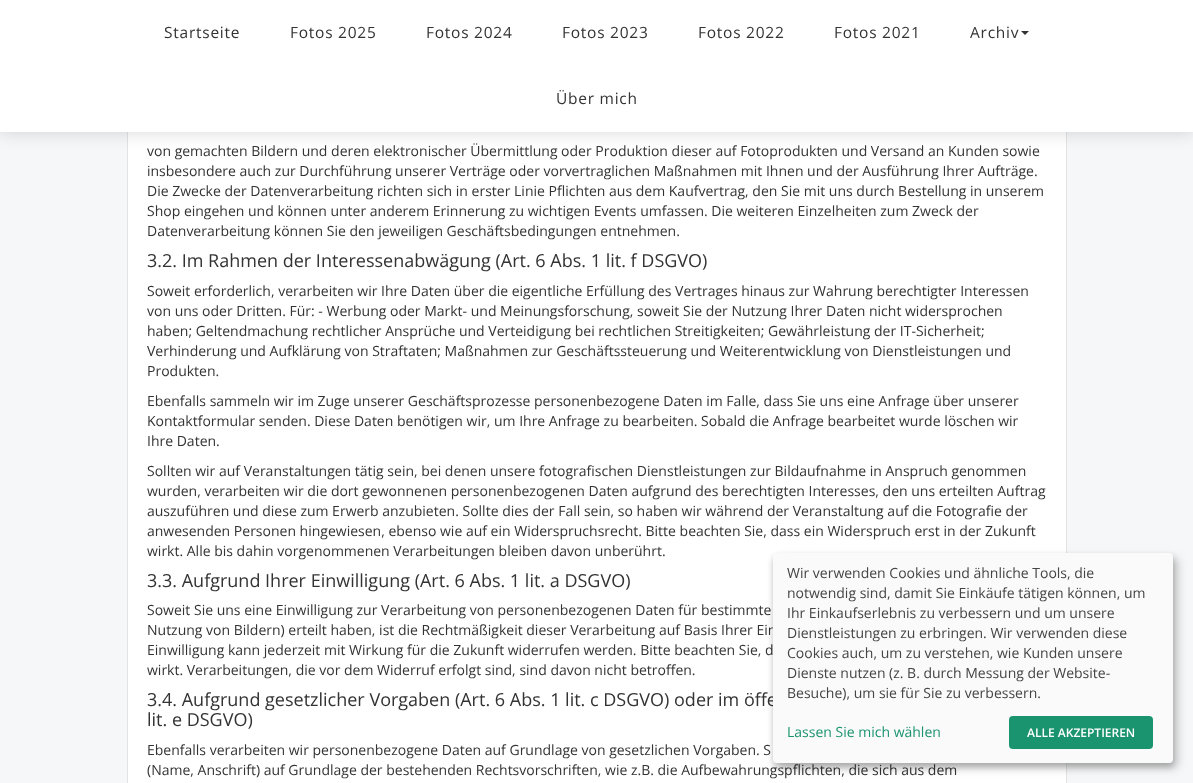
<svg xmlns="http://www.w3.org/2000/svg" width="1193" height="783">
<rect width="100%" height="100%" fill="#f6f7f8"/>
<rect x="128" y="132" width="938" height="651" fill="#fff"/>
<rect x="127.5" y="-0.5" width="939" height="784" fill="none" stroke="#e3e3e3"/>
<rect x="-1" y="-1" width="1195" height="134" fill="#00000024" filter="blur(8.5px)"/>
<rect width="1193" height="132" fill="#fff"/>
<text x="164" y="38" style="font-family:Open Sans;font-size:15.5px;letter-spacing:0.75px;fill:#333">Startseite</text>
<text x="290" y="38" style="font-family:Open Sans;font-size:15.5px;letter-spacing:0.75px;fill:#333">Fotos 2025</text>
<text x="426" y="38" style="font-family:Open Sans;font-size:15.5px;letter-spacing:0.75px;fill:#333">Fotos 2024</text>
<text x="562" y="38" style="font-family:Open Sans;font-size:15.5px;letter-spacing:0.75px;fill:#333">Fotos 2023</text>
<text x="698" y="38" style="font-family:Open Sans;font-size:15.5px;letter-spacing:0.75px;fill:#333">Fotos 2022</text>
<text x="834" y="38" style="font-family:Open Sans;font-size:15.5px;letter-spacing:0.75px;fill:#333">Fotos 2021</text>
<text x="970" y="38" style="font-family:Open Sans;font-size:15.5px;letter-spacing:0.75px;fill:#333">Archiv</text>
<path d="M1021 31h8l-4 4z" fill="#333"/>
<text x="556" y="104" style="font-family:Open Sans;font-size:15.5px;letter-spacing:0.75px;fill:#333">Über mich</text>
<text x="147" y="156" style="font-family:Open Sans;font-size:14px;fill:#333">von gemachten Bildern und deren elektronischer Übermittlung oder Produktion dieser auf Fotoprodukten und Versand an Kunden sowie</text>
<text x="147" y="176" style="font-family:Open Sans;font-size:14px;fill:#333">insbesondere auch zur Durchführung unserer Verträge oder vorvertraglichen Maßnahmen mit Ihnen und der Ausführung Ihrer Aufträge.</text>
<text x="147" y="196" style="font-family:Open Sans;font-size:14px;fill:#333">Die Zwecke der Datenverarbeitung richten sich in erster Linie Pflichten aus dem Kaufvertrag, den Sie mit uns durch Bestellung in unserem</text>
<text x="147" y="216" style="font-family:Open Sans;font-size:14px;fill:#333">Shop eingehen und können unter anderem Erinnerung zu wichtigen Events umfassen. Die weiteren Einzelheiten zum Zweck der</text>
<text x="147" y="236" style="font-family:Open Sans;font-size:14px;fill:#333">Datenverarbeitung können Sie den jeweiligen Geschäftsbedingungen entnehmen.</text>
<text x="147" y="267" style="font-family:Open Sans;font-size:18px;fill:#333">3.2. Im Rahmen der Interessenabwägung (Art. 6 Abs. 1 lit. f DSGVO)</text>
<text x="147" y="296" style="font-family:Open Sans;font-size:14px;fill:#333">Soweit erforderlich, verarbeiten wir Ihre Daten über die eigentliche Erfüllung des Vertrages hinaus zur Wahrung berechtigter Interessen</text>
<text x="147" y="316" style="font-family:Open Sans;font-size:14px;fill:#333">von uns oder Dritten. Für: - Werbung oder Markt- und Meinungsforschung, soweit Sie der Nutzung Ihrer Daten nicht widersprochen</text>
<text x="147" y="336" style="font-family:Open Sans;font-size:14px;fill:#333">haben; Geltendmachung rechtlicher Ansprüche und Verteidigung bei rechtlichen Streitigkeiten; Gewährleistung der IT-Sicherheit;</text>
<text x="147" y="356" style="font-family:Open Sans;font-size:14px;fill:#333">Verhinderung und Aufklärung von Straftaten; Maßnahmen zur Geschäftssteuerung und Weiterentwicklung von Dienstleistungen und</text>
<text x="147" y="376" style="font-family:Open Sans;font-size:14px;fill:#333">Produkten.</text>
<text x="147" y="406" style="font-family:Open Sans;font-size:14px;fill:#333">Ebenfalls sammeln wir im Zuge unserer Geschäftsprozesse personenbezogene Daten im Falle, dass Sie uns eine Anfrage über unserer</text>
<text x="147" y="426" style="font-family:Open Sans;font-size:14px;fill:#333">Kontaktformular senden. Diese Daten benötigen wir, um Ihre Anfrage zu bearbeiten. Sobald die Anfrage bearbeitet wurde löschen wir</text>
<text x="147" y="446" style="font-family:Open Sans;font-size:14px;fill:#333">Ihre Daten.</text>
<text x="147" y="476" style="font-family:Open Sans;font-size:14px;fill:#333">Sollten wir auf Veranstaltungen tätig sein, bei denen unsere fotografischen Dienstleistungen zur Bildaufnahme in Anspruch genommen</text>
<text x="147" y="496" style="font-family:Open Sans;font-size:14px;fill:#333">wurden, verarbeiten wir die dort gewonnenen personenbezogenen Daten aufgrund des berechtigten Interesses, den uns erteilten Auftrag</text>
<text x="147" y="516" style="font-family:Open Sans;font-size:14px;fill:#333">auszuführen und diese zum Erwerb anzubieten. Sollte dies der Fall sein, so haben wir während der Veranstaltung auf die Fotografie der</text>
<text x="147" y="536" style="font-family:Open Sans;font-size:14px;fill:#333">anwesenden Personen hingewiesen, ebenso wie auf ein Widerspruchsrecht. Bitte beachten Sie, dass ein Widerspruch erst in der Zukunft</text>
<text x="147" y="556" style="font-family:Open Sans;font-size:14px;fill:#333">wirkt. Alle bis dahin vorgenommenen Verarbeitungen bleiben davon unberührt.</text>
<text x="147" y="587" style="font-family:Open Sans;font-size:18px;fill:#333">3.3. Aufgrund Ihrer Einwilligung (Art. 6 Abs. 1 lit. a DSGVO)</text>
<text x="147" y="615" style="font-family:Open Sans;font-size:14px;fill:#333">Soweit Sie uns eine Einwilligung zur Verarbeitung von personenbezogenen Daten für bestimmte</text>
<text x="147" y="635" style="font-family:Open Sans;font-size:14px;fill:#333">Nutzung von Bildern) erteilt haben, ist die Rechtmäßigkeit dieser Verarbeitung auf Basis Ihrer Ein</text>
<text x="147" y="655" style="font-family:Open Sans;font-size:14px;fill:#333">Einwilligung kann jederzeit mit Wirkung für die Zukunft widerrufen werden. Bitte beachten Sie, d</text>
<text x="147" y="675" style="font-family:Open Sans;font-size:14px;fill:#333">wirkt. Verarbeitungen, die vor dem Widerruf erfolgt sind, sind davon nicht betroffen.</text>
<text x="147" y="706" style="font-family:Open Sans;font-size:18px;fill:#333">3.4. Aufgrund gesetzlicher Vorgaben (Art. 6 Abs. 1 lit. c DSGVO) oder im öffe</text>
<text x="147" y="726" style="font-family:Open Sans;font-size:18px;fill:#333">lit. e DSGVO)</text>
<text x="147" y="755" style="font-family:Open Sans;font-size:14px;fill:#333">Ebenfalls verarbeiten wir personenbezogene Daten auf Grundlage von gesetzlichen Vorgaben. S</text>
<text x="147" y="775" style="font-family:Open Sans;font-size:14px;fill:#333">(Name, Anschrift) auf Grundlage der bestehenden Rechtsvorschriften, wie z.B. die Aufbewahrungspflichten, die sich aus dem</text>
<rect x="778" y="558" width="400" height="210" rx="4" fill="#00000030" filter="blur(5px)"/>
<rect x="773" y="557" width="400" height="210" rx="4" fill="#00000033" filter="blur(3px)"/>
<rect x="773" y="553" width="400" height="210" rx="4" fill="#fafafa"/>
<text x="787" y="578" style="font-family:Open Sans;font-size:14px;fill:#444">Wir verwenden Cookies und ähnliche Tools, die</text>
<text x="787" y="598" style="font-family:Open Sans;font-size:14px;fill:#444">notwendig sind, damit Sie Einkäufe tätigen können, um</text>
<text x="787" y="618" style="font-family:Open Sans;font-size:14px;fill:#444">Ihr Einkaufserlebnis zu verbessern und um unsere</text>
<text x="787" y="638" style="font-family:Open Sans;font-size:14px;fill:#444">Dienstleistungen zu erbringen. Wir verwenden diese</text>
<text x="787" y="658" style="font-family:Open Sans;font-size:14px;fill:#444">Cookies auch, um zu verstehen, wie Kunden unsere</text>
<text x="787" y="678" style="font-family:Open Sans;font-size:14px;fill:#444">Dienste nutzen (z. B. durch Messung der Website-</text>
<text x="787" y="698" style="font-family:Open Sans;font-size:14px;fill:#444">Besuche), um sie für Sie zu verbessern.</text>
<text x="787" y="737" style="font-family:Open Sans;font-size:14px;fill:#1a936f">Lassen Sie mich wählen</text>
<rect x="1009" y="716" width="144" height="33" rx="4" fill="#1a936f"/>
<text x="1027" y="737" style="font-family:Open Sans;font-size:12px;font-weight:600;fill:#fff">ALLE AKZEPTIEREN</text>
</svg>
